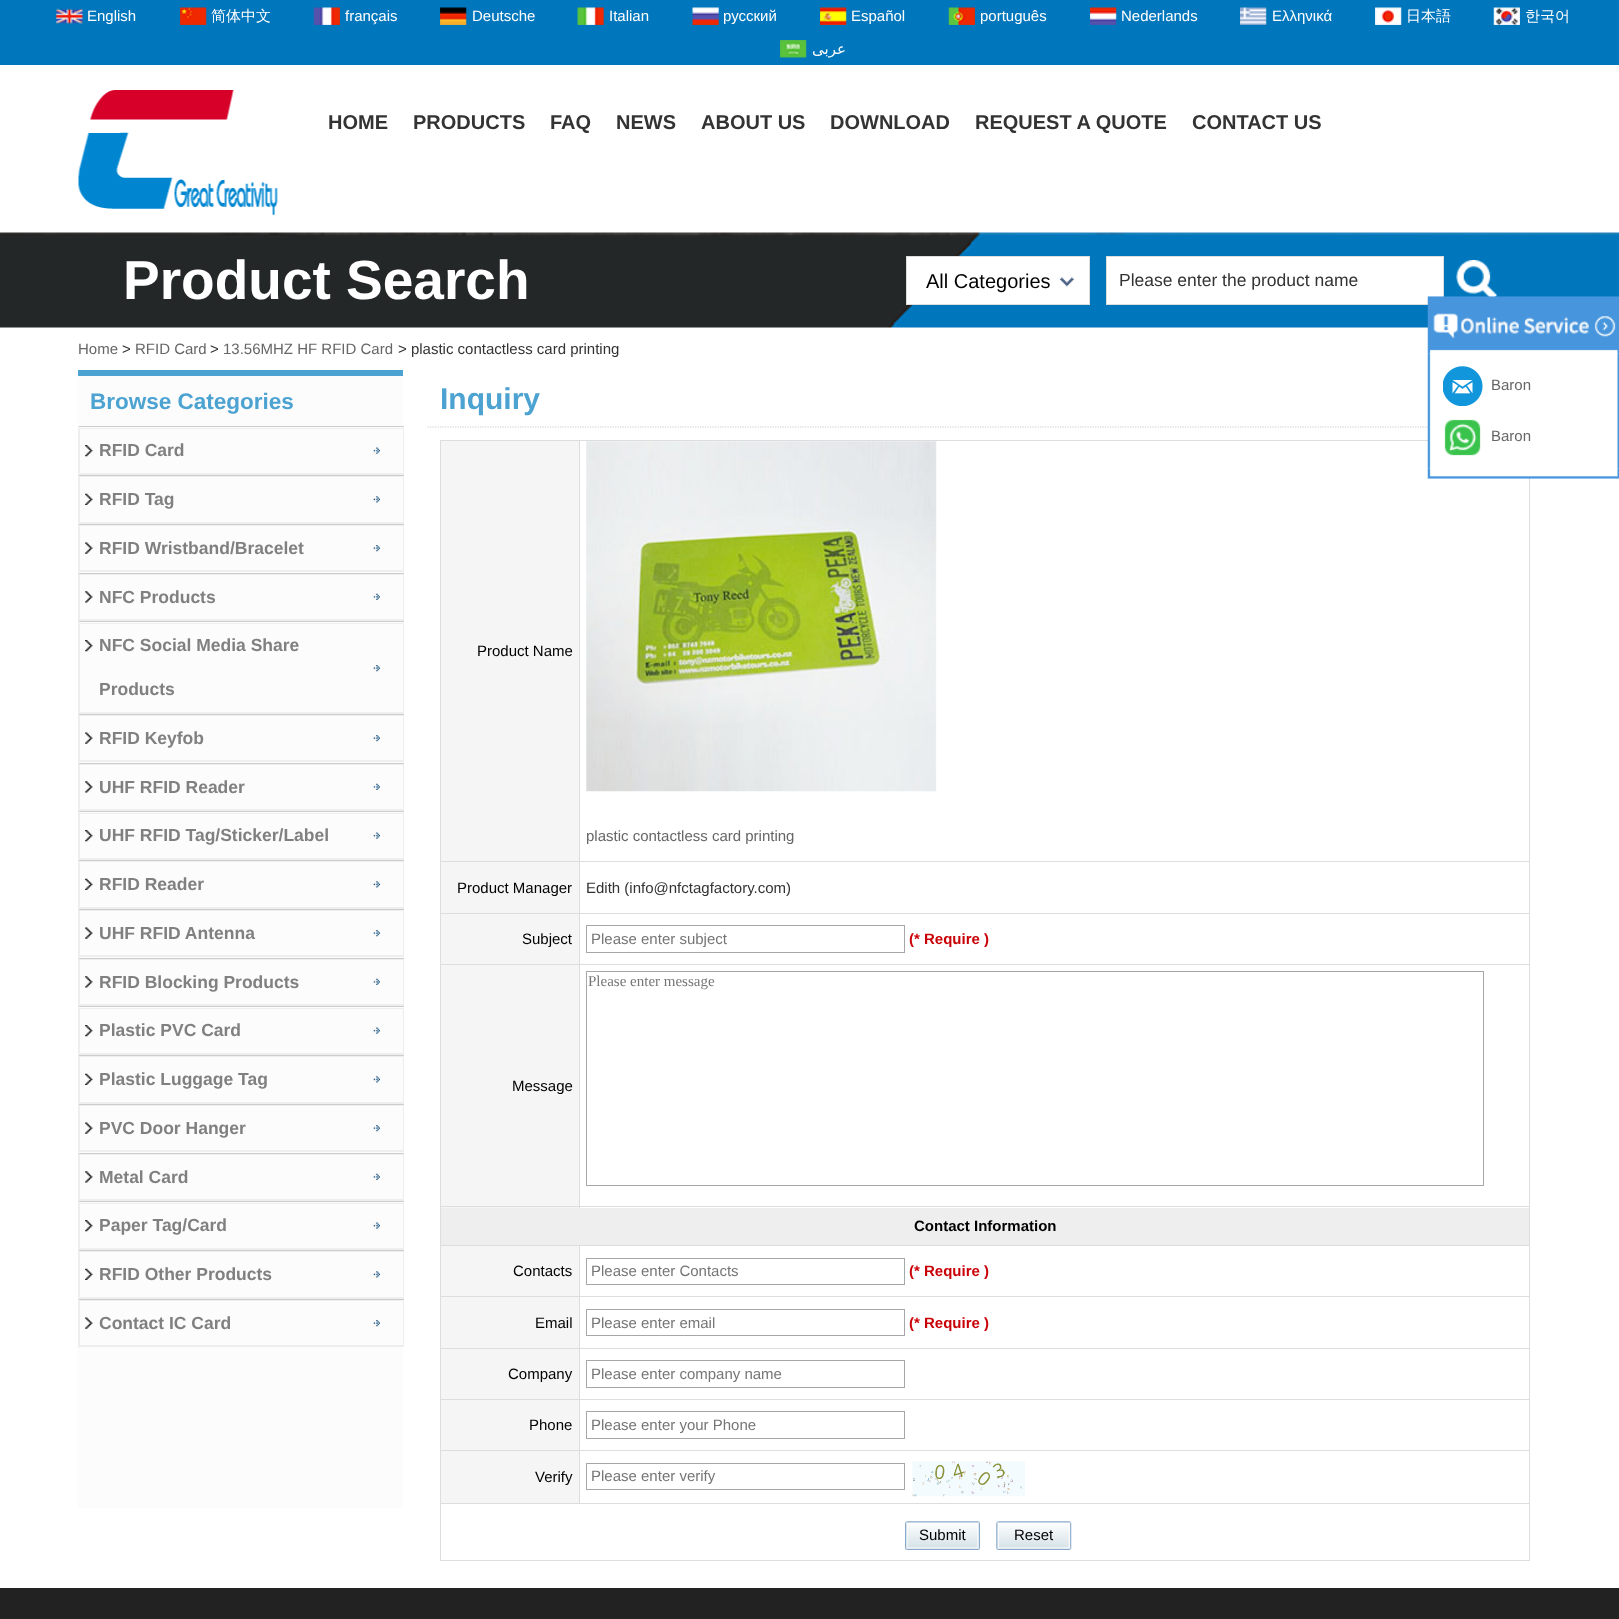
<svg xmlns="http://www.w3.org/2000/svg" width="1619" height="1619">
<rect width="100%" height="100%" fill="#fff"/>
<rect width="1619" height="65" fill="#0076bc"/>
<image x="56" y="8" width="27" height="16" href="media/1.png"/>
<text x="87" y="21" style="font-family:Liberation Sans;font-size:15px;fill:#fff">English</text>
<image x="180" y="7" width="27" height="18" href="media/2.png"/>
<text x="211" y="21" style="font-family:WenQuanYi Zen Hei;font-size:15px;font-weight:500;fill:#fff">简体中文</text>
<image x="313" y="7" width="27" height="18" href="media/3.png"/>
<text x="345" y="21" style="font-family:Liberation Sans;font-size:15px;fill:#fff">français</text>
<image x="440" y="7" width="27" height="18" href="media/4.png"/>
<text x="472" y="21" style="font-family:Liberation Sans;font-size:15px;fill:#fff">Deutsche</text>
<image x="577" y="7" width="27" height="18" href="media/5.png"/>
<text x="609" y="21" style="font-family:Liberation Sans;font-size:15px;fill:#fff">Italian</text>
<image x="692" y="7" width="27" height="18" href="media/6.png"/>
<text x="723" y="21" style="font-family:Liberation Sans;font-size:15px;fill:#fff">русский</text>
<image x="820" y="7" width="27" height="18" href="media/7.png"/>
<text x="851" y="21" style="font-family:Liberation Sans;font-size:15px;fill:#fff">Español</text>
<image x="948" y="7" width="27" height="18" href="media/8.png"/>
<text x="980" y="21" style="font-family:Liberation Sans;font-size:15px;fill:#fff">português</text>
<image x="1090" y="7" width="27" height="18" href="media/9.png"/>
<text x="1121" y="21" style="font-family:Liberation Sans;font-size:15px;fill:#fff">Nederlands</text>
<image x="1240" y="7" width="27" height="18" href="media/10.png"/>
<text x="1272" y="21" style="font-family:Liberation Sans;font-size:15px;fill:#fff">Ελληνικά</text>
<image x="1375" y="7" width="27" height="18" href="media/11.png"/>
<text x="1406" y="21" style="font-family:WenQuanYi Zen Hei;font-size:15px;font-weight:500;fill:#fff">日本語</text>
<image x="1493" y="7" width="27" height="18" href="media/12.png"/>
<text x="1525" y="21" style="font-family:WenQuanYi Zen Hei;font-size:15px;font-weight:500;fill:#fff">한국어</text>
<image x="780" y="40" width="27" height="18" href="media/13.png"/>
<text x="846" y="54" style="font-family:DejaVu Sans;font-size:15px;direction:rtl;fill:#fff">عربى</text>
<image x="78" y="90" width="200" height="125" href="media/14.png"/>
<text x="328" y="129" style="font-family:Liberation Sans;font-size:20px;font-weight:bold;fill:#333">HOME</text>
<text x="413" y="129" style="font-family:Liberation Sans;font-size:20px;font-weight:bold;fill:#333">PRODUCTS</text>
<text x="550" y="129" style="font-family:Liberation Sans;font-size:20px;font-weight:bold;fill:#333">FAQ</text>
<text x="616" y="129" style="font-family:Liberation Sans;font-size:20px;font-weight:bold;fill:#333">NEWS</text>
<text x="701" y="129" style="font-family:Liberation Sans;font-size:20px;font-weight:bold;fill:#333">ABOUT US</text>
<text x="830" y="129" style="font-family:Liberation Sans;font-size:20px;font-weight:bold;fill:#333">DOWNLOAD</text>
<text x="975" y="129" style="font-family:Liberation Sans;font-size:20px;font-weight:bold;fill:#333">REQUEST A QUOTE</text>
<text x="1192" y="129" style="font-family:Liberation Sans;font-size:20px;font-weight:bold;fill:#333">CONTACT US</text>
<image x="0" y="232" width="1619" height="96" href="media/15.png"/>
<text x="123" y="299" style="font-family:Liberation Sans;font-size:55px;font-weight:bold;fill:#fff">Product Search</text>
<rect x="906.5" y="256.5" width="183" height="48" fill="#fff" stroke="#ddd"/>
<image x="1059" y="277" width="15" height="10" href="media/16.png"/>
<text x="926" y="288" style="font-family:Liberation Sans;font-size:20px;fill:#000">All Categories</text>
<rect x="1106.5" y="256.5" width="337" height="48" fill="#fff" stroke="#ddd"/>
<text x="1119" y="286" style="font-family:Liberation Sans;font-size:17.5px;fill:#333">Please enter the product name</text>
<image x="1456" y="260" width="42" height="37" href="media/17.png"/>
<text x="78" y="354" style="font-family:Liberation Sans;font-size:15px;fill:#666">Home</text>
<text x="122" y="354" style="font-family:Liberation Sans;font-size:15px;fill:#333">&gt;</text>
<text x="135" y="354" style="font-family:Liberation Sans;font-size:15px;fill:#666">RFID Card</text>
<text x="210" y="354" style="font-family:Liberation Sans;font-size:15px;fill:#333">&gt;</text>
<text x="223" y="354" style="font-family:Liberation Sans;font-size:15px;fill:#666">13.56MHZ HF RFID Card</text>
<text x="398" y="354" style="font-family:Liberation Sans;font-size:15px;fill:#333">&gt; plastic contactless card printing</text>
<rect x="78" y="376" width="325" height="1132" fill="#fcfcfc"/>
<rect x="78" y="370" width="325" height="6" fill="#4ca2d1"/>
<text x="90" y="409" style="font-family:Liberation Sans;font-size:22.5px;font-weight:bold;fill:#4ca2d1">Browse Categories</text>
<image x="373" y="447" width="7" height="7" href="media/18.png"/>
<rect x="78" y="426" width="326" height="1" fill="#cdcdcd"/>
<rect x="78" y="474" width="326" height="1" fill="#eee"/>
<rect x="78" y="426" width="1" height="49" fill="#eee"/>
<image x="85" y="445" width="8" height="12" href="media/19.png"/>
<rect x="79.5" y="428.5" width="324" height="45" fill="none" stroke="#eee"/>
<text x="99" y="456" style="font-family:Liberation Sans;font-size:17.5px;font-weight:bold;fill:#808080">RFID Card</text>
<image x="373" y="496" width="7" height="7" href="media/20.png"/>
<rect x="78" y="475" width="326" height="1" fill="#cdcdcd"/>
<rect x="78" y="523" width="326" height="1" fill="#eee"/>
<rect x="78" y="475" width="1" height="49" fill="#eee"/>
<image x="85" y="493" width="8" height="12" href="media/21.png"/>
<rect x="79.5" y="476.5" width="324" height="46" fill="none" stroke="#eee"/>
<text x="99" y="505" style="font-family:Liberation Sans;font-size:17.5px;font-weight:bold;fill:#808080">RFID Tag</text>
<image x="373" y="545" width="7" height="7" href="media/22.png"/>
<rect x="78" y="524" width="326" height="1" fill="#cdcdcd"/>
<rect x="78" y="571" width="326" height="1" fill="#eee"/>
<rect x="78" y="524" width="1" height="49" fill="#eee"/>
<image x="85" y="542" width="8" height="12" href="media/23.png"/>
<rect x="79.5" y="525.5" width="324" height="45" fill="none" stroke="#eee"/>
<text x="99" y="554" style="font-family:Liberation Sans;font-size:17.5px;font-weight:bold;fill:#808080">RFID Wristband/Bracelet</text>
<image x="373" y="593" width="7" height="7" href="media/24.png"/>
<rect x="78" y="573" width="326" height="1" fill="#cdcdcd"/>
<rect x="78" y="620" width="326" height="1" fill="#eee"/>
<rect x="78" y="573" width="1" height="48" fill="#eee"/>
<image x="85" y="591" width="8" height="12" href="media/25.png"/>
<rect x="79.5" y="574.5" width="324" height="45" fill="none" stroke="#eee"/>
<text x="99" y="603" style="font-family:Liberation Sans;font-size:17.5px;font-weight:bold;fill:#808080">NFC Products</text>
<image x="373" y="665" width="7" height="7" href="media/22.png"/>
<rect x="78" y="621" width="326" height="1" fill="#cdcdcd"/>
<rect x="78" y="713" width="326" height="1" fill="#eee"/>
<rect x="78" y="621" width="1" height="93" fill="#eee"/>
<image x="85" y="640" width="8" height="12" href="media/19.png"/>
<rect x="79.5" y="623.5" width="324" height="89" fill="none" stroke="#eee"/>
<text x="99" y="651" style="font-family:Liberation Sans;font-size:17.5px;font-weight:bold;fill:#808080">NFC Social Media Share</text>
<text x="99" y="695" style="font-family:Liberation Sans;font-size:17.5px;font-weight:bold;fill:#808080">Products</text>
<image x="373" y="735" width="7" height="7" href="media/22.png"/>
<rect x="78" y="714" width="326" height="1" fill="#cdcdcd"/>
<rect x="78" y="761" width="326" height="1" fill="#eee"/>
<rect x="78" y="714" width="1" height="49" fill="#eee"/>
<image x="85" y="732" width="8" height="12" href="media/23.png"/>
<rect x="79.5" y="715.5" width="324" height="45" fill="none" stroke="#eee"/>
<text x="99" y="744" style="font-family:Liberation Sans;font-size:17.5px;font-weight:bold;fill:#808080">RFID Keyfob</text>
<image x="373" y="783" width="7" height="7" href="media/24.png"/>
<rect x="78" y="763" width="326" height="1" fill="#cdcdcd"/>
<rect x="78" y="810" width="326" height="1" fill="#eee"/>
<rect x="78" y="763" width="1" height="48" fill="#eee"/>
<image x="85" y="781" width="8" height="12" href="media/26.png"/>
<rect x="79.5" y="764.5" width="324" height="45" fill="none" stroke="#eee"/>
<text x="99" y="793" style="font-family:Liberation Sans;font-size:17.5px;font-weight:bold;fill:#808080">UHF RFID Reader</text>
<image x="373" y="832" width="7" height="7" href="media/18.png"/>
<rect x="78" y="811" width="326" height="1" fill="#cdcdcd"/>
<rect x="78" y="859" width="326" height="1" fill="#eee"/>
<rect x="78" y="811" width="1" height="49" fill="#eee"/>
<image x="85" y="830" width="8" height="12" href="media/19.png"/>
<rect x="79.5" y="813.5" width="324" height="45" fill="none" stroke="#eee"/>
<text x="99" y="841" style="font-family:Liberation Sans;font-size:17.5px;font-weight:bold;fill:#808080">UHF RFID Tag/Sticker/Label</text>
<image x="373" y="881" width="7" height="7" href="media/20.png"/>
<rect x="78" y="860" width="326" height="1" fill="#cdcdcd"/>
<rect x="78" y="908" width="326" height="1" fill="#eee"/>
<rect x="78" y="860" width="1" height="49" fill="#eee"/>
<image x="85" y="878" width="8" height="12" href="media/21.png"/>
<rect x="79.5" y="861.5" width="324" height="46" fill="none" stroke="#eee"/>
<text x="99" y="890" style="font-family:Liberation Sans;font-size:17.5px;font-weight:bold;fill:#808080">RFID Reader</text>
<image x="373" y="930" width="7" height="7" href="media/22.png"/>
<rect x="78" y="909" width="326" height="1" fill="#cdcdcd"/>
<rect x="78" y="956" width="326" height="1" fill="#eee"/>
<rect x="78" y="909" width="1" height="49" fill="#eee"/>
<image x="85" y="927" width="8" height="12" href="media/23.png"/>
<rect x="79.5" y="910.5" width="324" height="45" fill="none" stroke="#eee"/>
<text x="99" y="939" style="font-family:Liberation Sans;font-size:17.5px;font-weight:bold;fill:#808080">UHF RFID Antenna</text>
<image x="373" y="978" width="7" height="7" href="media/24.png"/>
<rect x="78" y="958" width="326" height="1" fill="#cdcdcd"/>
<rect x="78" y="1005" width="326" height="1" fill="#eee"/>
<rect x="78" y="958" width="1" height="48" fill="#eee"/>
<image x="85" y="976" width="8" height="12" href="media/25.png"/>
<rect x="79.5" y="959.5" width="324" height="45" fill="none" stroke="#eee"/>
<text x="99" y="988" style="font-family:Liberation Sans;font-size:17.5px;font-weight:bold;fill:#808080">RFID Blocking Products</text>
<image x="373" y="1027" width="7" height="7" href="media/18.png"/>
<rect x="78" y="1006" width="326" height="1" fill="#cdcdcd"/>
<rect x="78" y="1054" width="326" height="1" fill="#eee"/>
<rect x="78" y="1006" width="1" height="49" fill="#eee"/>
<image x="85" y="1025" width="8" height="12" href="media/27.png"/>
<rect x="79.5" y="1008.5" width="324" height="45" fill="none" stroke="#eee"/>
<text x="99" y="1036" style="font-family:Liberation Sans;font-size:17.5px;font-weight:bold;fill:#808080">Plastic PVC Card</text>
<image x="373" y="1076" width="7" height="7" href="media/20.png"/>
<rect x="78" y="1055" width="326" height="1" fill="#cdcdcd"/>
<rect x="78" y="1103" width="326" height="1" fill="#eee"/>
<rect x="78" y="1055" width="1" height="49" fill="#eee"/>
<image x="85" y="1073" width="8" height="12" href="media/21.png"/>
<rect x="79.5" y="1056.5" width="324" height="46" fill="none" stroke="#eee"/>
<text x="99" y="1085" style="font-family:Liberation Sans;font-size:17.5px;font-weight:bold;fill:#808080">Plastic Luggage Tag</text>
<image x="373" y="1125" width="7" height="7" href="media/22.png"/>
<rect x="78" y="1104" width="326" height="1" fill="#cdcdcd"/>
<rect x="78" y="1151" width="326" height="1" fill="#eee"/>
<rect x="78" y="1104" width="1" height="49" fill="#eee"/>
<image x="85" y="1122" width="8" height="12" href="media/23.png"/>
<rect x="79.5" y="1105.5" width="324" height="45" fill="none" stroke="#eee"/>
<text x="99" y="1134" style="font-family:Liberation Sans;font-size:17.5px;font-weight:bold;fill:#808080">PVC Door Hanger</text>
<image x="373" y="1173" width="7" height="7" href="media/28.png"/>
<rect x="78" y="1153" width="326" height="1" fill="#cdcdcd"/>
<rect x="78" y="1200" width="326" height="1" fill="#eee"/>
<rect x="78" y="1153" width="1" height="48" fill="#eee"/>
<image x="85" y="1171" width="8" height="12" href="media/29.png"/>
<rect x="79.5" y="1154.5" width="324" height="45" fill="none" stroke="#eee"/>
<text x="99" y="1183" style="font-family:Liberation Sans;font-size:17.5px;font-weight:bold;fill:#808080">Metal Card</text>
<image x="373" y="1222" width="7" height="7" href="media/18.png"/>
<rect x="78" y="1201" width="326" height="1" fill="#cdcdcd"/>
<rect x="78" y="1249" width="326" height="1" fill="#eee"/>
<rect x="78" y="1201" width="1" height="49" fill="#eee"/>
<image x="85" y="1220" width="8" height="12" href="media/19.png"/>
<rect x="79.5" y="1203.5" width="324" height="45" fill="none" stroke="#eee"/>
<text x="99" y="1231" style="font-family:Liberation Sans;font-size:17.5px;font-weight:bold;fill:#808080">Paper Tag/Card</text>
<image x="373" y="1271" width="7" height="7" href="media/20.png"/>
<rect x="78" y="1250" width="326" height="1" fill="#cdcdcd"/>
<rect x="78" y="1298" width="326" height="1" fill="#eee"/>
<rect x="78" y="1250" width="1" height="49" fill="#eee"/>
<image x="85" y="1268" width="8" height="12" href="media/21.png"/>
<rect x="79.5" y="1251.5" width="324" height="46" fill="none" stroke="#eee"/>
<text x="99" y="1280" style="font-family:Liberation Sans;font-size:17.5px;font-weight:bold;fill:#808080">RFID Other Products</text>
<image x="373" y="1320" width="7" height="7" href="media/22.png"/>
<rect x="78" y="1299" width="326" height="1" fill="#cdcdcd"/>
<rect x="78" y="1346" width="326" height="1" fill="#eee"/>
<rect x="78" y="1299" width="1" height="49" fill="#eee"/>
<image x="85" y="1317" width="8" height="12" href="media/23.png"/>
<rect x="79.5" y="1300.5" width="324" height="45" fill="none" stroke="#eee"/>
<text x="99" y="1329" style="font-family:Liberation Sans;font-size:17.5px;font-weight:bold;fill:#808080">Contact IC Card</text>
<path d="M427.5 427h1115" fill="none" stroke="#ccc" stroke-width="1.2" stroke-dasharray="1.25 1.25"/>
<text x="440" y="409" style="font-family:Liberation Sans;font-size:30px;font-weight:bold;fill:#4ca2d1">Inquiry</text>
<rect x="440" y="440" width="988" height="1" fill="#ddd"/>
<rect x="441" y="441" width="138" height="472" fill="#f5f5f5"/>
<rect x="440" y="861" width="1090" height="1" fill="#ddd"/>
<rect x="440" y="913" width="1090" height="1" fill="#ddd"/>
<rect x="440" y="964" width="1090" height="1" fill="#ddd"/>
<rect x="441" y="965" width="138" height="243" fill="#f5f5f5"/>
<rect x="440" y="1206" width="1090" height="1" fill="#ddd"/>
<rect x="440" y="1245" width="1090" height="1" fill="#ddd"/>
<rect x="441" y="1246" width="138" height="102" fill="#f5f5f5"/>
<rect x="440" y="1296" width="1090" height="1" fill="#ddd"/>
<rect x="440" y="1348" width="1090" height="1" fill="#ddd"/>
<rect x="440" y="1399" width="1090" height="1" fill="#ddd"/>
<rect x="440" y="1450" width="1090" height="1" fill="#ddd"/>
<rect x="440" y="1503" width="1090" height="1" fill="#ddd"/>
<rect x="1529" y="1503" width="1" height="58" fill="#ddd"/>
<rect x="440" y="1560" width="1090" height="1" fill="#ddd"/>
<rect x="440" y="1503" width="1" height="58" fill="#ddd"/>
<rect x="440" y="1450" width="1" height="54" fill="#ddd"/>
<rect x="440" y="1399" width="1" height="52" fill="#ddd"/>
<rect x="440" y="1348" width="1" height="52" fill="#ddd"/>
<rect x="440" y="1296" width="1" height="53" fill="#ddd"/>
<rect x="440" y="1245" width="1" height="53" fill="#ddd"/>
<rect x="440" y="1206" width="1" height="40" fill="#ddd"/>
<rect x="440" y="964" width="1" height="244" fill="#ddd"/>
<rect x="440" y="913" width="1" height="52" fill="#ddd"/>
<rect x="440" y="861" width="1" height="53" fill="#ddd"/>
<rect x="440" y="440" width="1" height="423" fill="#ddd"/>
<text x="477" y="656" style="font-family:Liberation Sans;font-size:15px;fill:#000">Product Name</text>
<image x="586" y="441" width="351" height="351" href="media/30.png"/>
<text x="586" y="841" style="font-family:Liberation Sans;font-size:15px;fill:#666">plastic contactless card printing</text>
<rect x="1529" y="1450" width="1" height="54" fill="#ddd"/>
<rect x="1529" y="1399" width="1" height="52" fill="#ddd"/>
<rect x="1529" y="1348" width="1" height="52" fill="#ddd"/>
<rect x="1529" y="1296" width="1" height="53" fill="#ddd"/>
<rect x="1529" y="1245" width="1" height="53" fill="#ddd"/>
<rect x="1529" y="1206" width="1" height="40" fill="#ddd"/>
<rect x="1529" y="964" width="1" height="244" fill="#ddd"/>
<rect x="1529" y="913" width="1" height="52" fill="#ddd"/>
<rect x="1529" y="468" width="1" height="446" fill="#ddd"/>
<text x="457" y="893" style="font-family:Liberation Sans;font-size:15px;fill:#000">Product Manager</text>
<text x="586" y="893" style="font-family:Liberation Sans;font-size:15px;fill:#333">Edith (info@nfctagfactory.com)</text>
<rect x="441" y="914" width="138" height="50" fill="#f5f5f5"/>
<text x="522" y="944" style="font-family:Liberation Sans;font-size:15px;fill:#000">Subject</text>
<rect x="586.5" y="925.5" width="318" height="27" fill="none" stroke="#a7a7a7"/>
<text x="591" y="944" style="font-family:Liberation Sans;font-size:15px;fill:#757575">Please enter subject</text>
<text x="909" y="944" style="font-family:Liberation Sans;font-size:15px;font-weight:bold;fill:#ca0007">(* Require )</text>
<rect x="579" y="440" width="1" height="768" fill="#ddd"/>
<rect x="586.5" y="971.5" width="897" height="214" fill="none" stroke="#a7a7a7"/>
<text x="588" y="986" style="font-family:Liberation Serif;font-size:15px;fill:#757575">Please enter message</text>
<text x="512" y="1091" style="font-family:Liberation Sans;font-size:15px;fill:#000">Message</text>
<rect x="441" y="1208" width="1088" height="37" fill="#eee"/>
<text x="914" y="1231" style="font-family:Liberation Sans;font-size:15px;font-weight:bold;fill:#000">Contact Information</text>
<text x="513" y="1276" style="font-family:Liberation Sans;font-size:15px;fill:#000">Contacts</text>
<rect x="586.5" y="1258.5" width="318" height="26" fill="none" stroke="#a7a7a7"/>
<text x="591" y="1276" style="font-family:Liberation Sans;font-size:15px;fill:#757575">Please enter Contacts</text>
<text x="909" y="1276" style="font-family:Liberation Sans;font-size:15px;font-weight:bold;fill:#ca0007">(* Require )</text>
<text x="535" y="1328" style="font-family:Liberation Sans;font-size:15px;fill:#000">Email</text>
<rect x="586.5" y="1309.5" width="318" height="26" fill="none" stroke="#a7a7a7"/>
<text x="591" y="1328" style="font-family:Liberation Sans;font-size:15px;fill:#757575">Please enter email</text>
<text x="909" y="1328" style="font-family:Liberation Sans;font-size:15px;font-weight:bold;fill:#ca0007">(* Require )</text>
<rect x="441" y="1349" width="138" height="50" fill="#f5f5f5"/>
<text x="508" y="1379" style="font-family:Liberation Sans;font-size:15px;fill:#000">Company</text>
<rect x="586.5" y="1360.5" width="318" height="27" fill="none" stroke="#a7a7a7"/>
<text x="591" y="1379" style="font-family:Liberation Sans;font-size:15px;fill:#757575">Please enter company name</text>
<rect x="441" y="1400" width="138" height="50" fill="#f5f5f5"/>
<text x="529" y="1430" style="font-family:Liberation Sans;font-size:15px;fill:#000">Phone</text>
<rect x="586.5" y="1411.5" width="318" height="27" fill="none" stroke="#a7a7a7"/>
<text x="591" y="1430" style="font-family:Liberation Sans;font-size:15px;fill:#757575">Please enter your Phone</text>
<rect x="441" y="1451" width="138" height="52" fill="#f5f5f5"/>
<text x="535" y="1482" style="font-family:Liberation Sans;font-size:15px;fill:#000">Verify</text>
<rect x="579" y="1245" width="1" height="259" fill="#ddd"/>
<rect x="586.5" y="1463.5" width="318" height="26" fill="none" stroke="#a7a7a7"/>
<text x="591" y="1481" style="font-family:Liberation Sans;font-size:15px;fill:#757575">Please enter verify</text>
<image x="912" y="1461" width="113" height="36" href="media/31.png"/>
<image x="905" y="1521" width="75" height="29" href="media/32.png"/>
<text x="919" y="1540" style="font-family:Liberation Sans;font-size:15px;fill:#000">Submit</text>
<image x="996" y="1521" width="76" height="29" href="media/33.png"/>
<text x="1014" y="1540" style="font-family:Liberation Sans;font-size:15px;fill:#000">Reset</text>
<image x="1427" y="296" width="192" height="58" href="media/34.png"/>
<image x="1594" y="316" width="22" height="21" href="media/35.png"/>
<image x="1427" y="353" width="192" height="116" href="media/36.png"/>
<image x="1443" y="366" width="40" height="40" href="media/37.png"/>
<text x="1491" y="390" style="font-family:Liberation Sans;font-size:15px;fill:#666">Baron</text>
<image x="1444" y="419" width="37" height="37" href="media/38.png"/>
<text x="1491" y="441" style="font-family:Liberation Sans;font-size:15px;fill:#666">Baron</text>
<image x="1427" y="468" width="192" height="11" href="media/39.png"/>
<rect y="1588" width="1619" height="31" fill="#222"/>
</svg>
